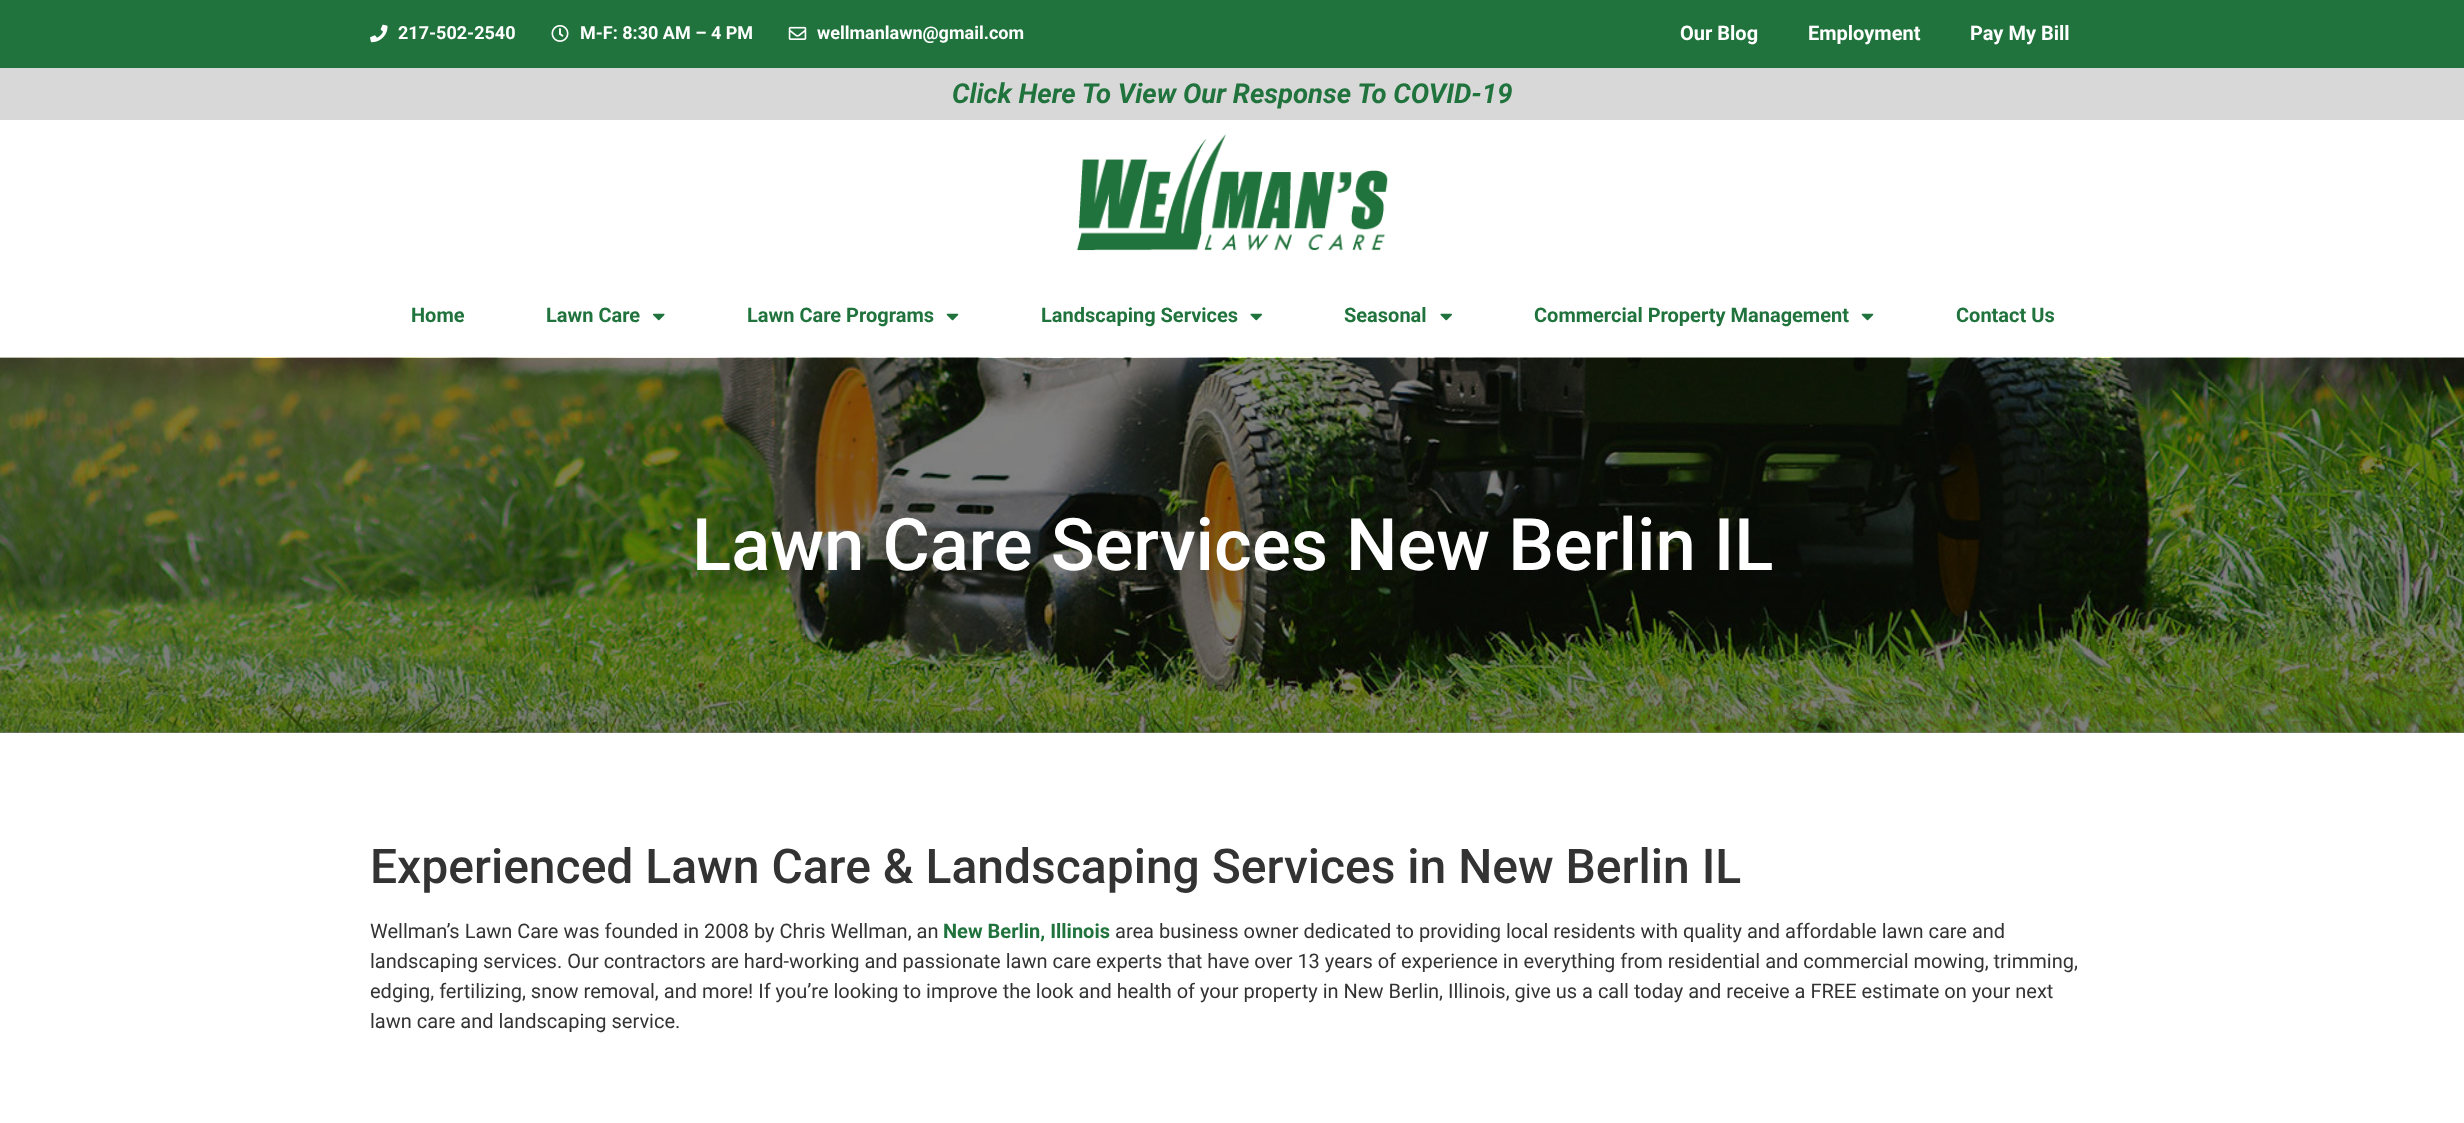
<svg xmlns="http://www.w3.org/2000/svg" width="2464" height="1123">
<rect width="100%" height="100%" fill="#fff"/>
<rect y="732" width="2464" height="1" fill="#808080"/>
<rect width="2464" height="68" fill="#20733c"/>
<image x="370" y="24" width="18" height="19" href="media/1.png"/>
<text x="398" y="39" style="font-family:Roboto;font-size:18px;font-weight:bold;fill:#fff">217-502-2540</text>
<image x="551" y="25" width="18" height="17" href="media/2.png"/>
<text x="580" y="39" style="font-family:Roboto;font-size:18px;font-weight:bold;fill:#fff">M-F: 8:30 AM – 4 PM</text>
<image x="788" y="26" width="19" height="14" href="media/3.png"/>
<text x="817" y="39" style="font-family:Roboto;font-size:18px;font-weight:bold;fill:#fff">wellmanlawn@gmail.com</text>
<text x="1680" y="40" style="font-family:Roboto;font-size:20px;font-weight:bold;fill:#fff">Our Blog</text>
<text x="1808" y="40" style="font-family:Roboto;font-size:20px;font-weight:bold;fill:#fff">Employment</text>
<text x="1970" y="40" style="font-family:Roboto;font-size:20px;font-weight:bold;fill:#fff">Pay My Bill</text>
<rect y="68" width="2464" height="52" fill="#d8d8d8"/>
<text x="952" y="103" style="font-family:Roboto;font-size:27.5px;font-weight:bold;font-style:italic;fill:#20733c">Click Here To View Our Response To COVID-19</text>
<image x="1076" y="134" width="312" height="117" href="media/4.png"/>
<text x="411" y="322" style="font-family:Roboto;font-size:20px;font-weight:bold;fill:#20733c">Home</text>
<text x="546" y="322" style="font-family:Roboto;font-size:20px;font-weight:bold;fill:#20733c">Lawn Care</text>
<image x="653" y="313" width="12" height="8" href="media/5.png"/>
<text x="747" y="322" style="font-family:Roboto;font-size:20px;font-weight:bold;fill:#20733c">Lawn Care Programs</text>
<image x="946" y="313" width="13" height="8" href="media/6.png"/>
<text x="1041" y="322" style="font-family:Roboto;font-size:20px;font-weight:bold;fill:#20733c">Landscaping Services</text>
<image x="1250" y="313" width="12" height="8" href="media/7.png"/>
<text x="1344" y="322" style="font-family:Roboto;font-size:20px;font-weight:bold;fill:#20733c">Seasonal</text>
<image x="1440" y="313" width="12" height="8" href="media/7.png"/>
<text x="1534" y="322" style="font-family:Roboto;font-size:20px;font-weight:bold;fill:#20733c">Commercial Property Management</text>
<image x="1861" y="313" width="13" height="8" href="media/6.png"/>
<text x="1956" y="322" style="font-family:Roboto;font-size:20px;font-weight:bold;fill:#20733c">Contact Us</text>
<image x="0" y="357" width="2464" height="376" href="media/8.png"/>
<text x="692" y="570" style="font-family:Roboto;font-size:72.5px;font-weight:500;fill:#fff">Lawn Care Services New Berlin IL</text>
<text x="370" y="883" style="font-family:Roboto;font-size:48px;font-weight:500;fill:#333">Experienced Lawn Care &amp; Landscaping Services in New Berlin IL</text>
<text x="370" y="938" style="font-family:Roboto;font-size:20px;fill:#333">Wellman’s Lawn Care was founded in 2008 by Chris Wellman, an</text>
<text x="943" y="938" style="font-family:Roboto;font-size:20px;font-weight:bold;fill:#20733c">New Berlin, Illinois</text>
<text x="1115" y="938" style="font-family:Roboto;font-size:20px;fill:#333">area business owner dedicated to providing local residents with quality and affordable lawn care and</text>
<text x="370" y="968" style="font-family:Roboto;font-size:20px;fill:#333">landscaping services. Our contractors are hard-working and passionate lawn care experts that have over 13 years of experience in everything from residential and commercial mowing, trimming,</text>
<text x="370" y="998" style="font-family:Roboto;font-size:20px;fill:#333">edging, fertilizing, snow removal, and more! If you’re looking to improve the look and health of your property in New Berlin, Illinois, give us a call today and receive a FREE estimate on your next</text>
<text x="370" y="1028" style="font-family:Roboto;font-size:20px;fill:#333">lawn care and landscaping service.</text>
</svg>
